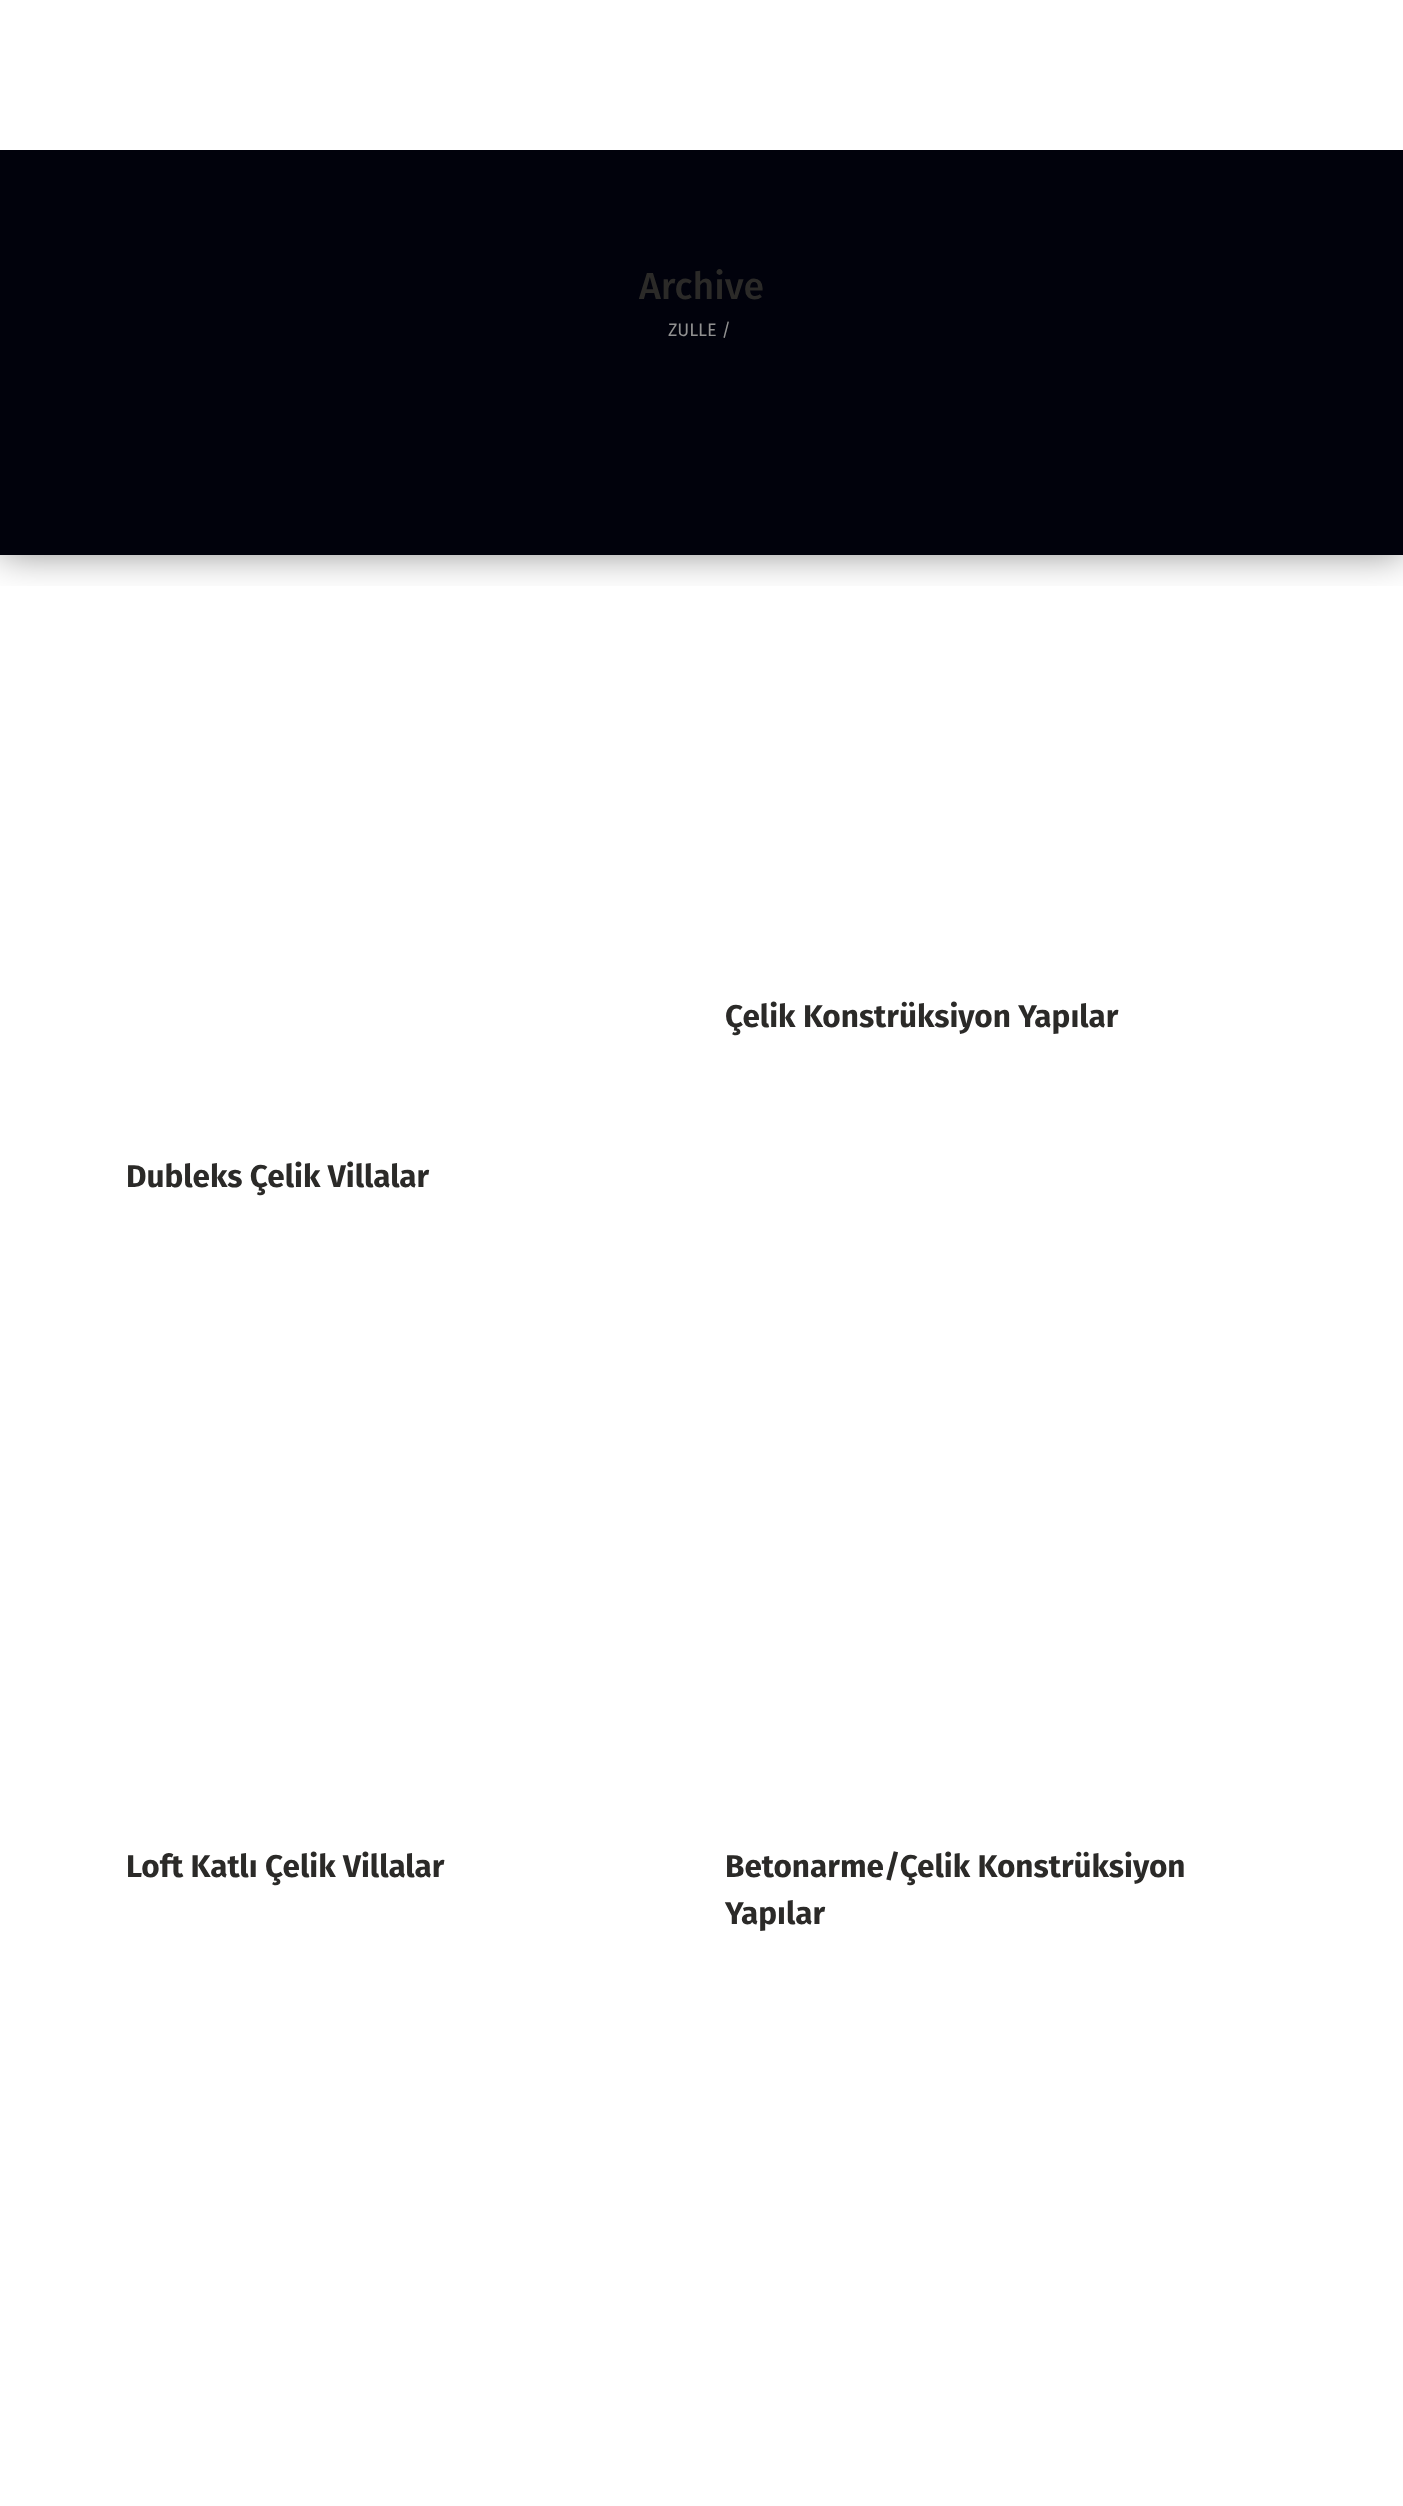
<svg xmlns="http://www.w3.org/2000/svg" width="1403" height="2506">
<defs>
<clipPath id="clip1"><rect x="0" y="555" width="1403" height="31"/></clipPath>
</defs>
<rect width="100%" height="100%" fill="#fff"/>
<rect y="150" width="1403" height="405" fill="#01020c"/>
<g clip-path="url(#clip1)">
<rect y="149" width="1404" height="405" fill="#00000073" filter="blur(19px)"/>
</g>
<rect y="111" width="1403" height="39" fill="#fff"/>
<text x="639" y="299" style="font-family:Fira Sans;font-size:37.5px;font-weight:500;fill:#2b2a28">Archive</text>
<text x="668" y="336" style="font-family:Fira Sans;font-size:18px;fill:#919191">ZULLE /</text>
<text x="725" y="1027" style="font-family:Fira Sans;font-size:31.5px;font-weight:bold;fill:#2b2a28">Çelik Konstrüksiyon Yapılar</text>
<text x="126" y="1187" style="font-family:Fira Sans;font-size:31.5px;font-weight:bold;fill:#2b2a28">Dubleks Çelik Villalar</text>
<text x="126" y="1877" style="font-family:Fira Sans;font-size:31.5px;font-weight:bold;fill:#2b2a28">Loft Katlı Çelik Villalar</text>
<text x="725" y="1877" style="font-family:Fira Sans;font-size:31.5px;font-weight:bold;fill:#2b2a28">Betonarme/Çelik Konstrüksiyon</text>
<text x="725" y="1924" style="font-family:Fira Sans;font-size:31.5px;font-weight:bold;fill:#2b2a28">Yapılar</text>
</svg>
